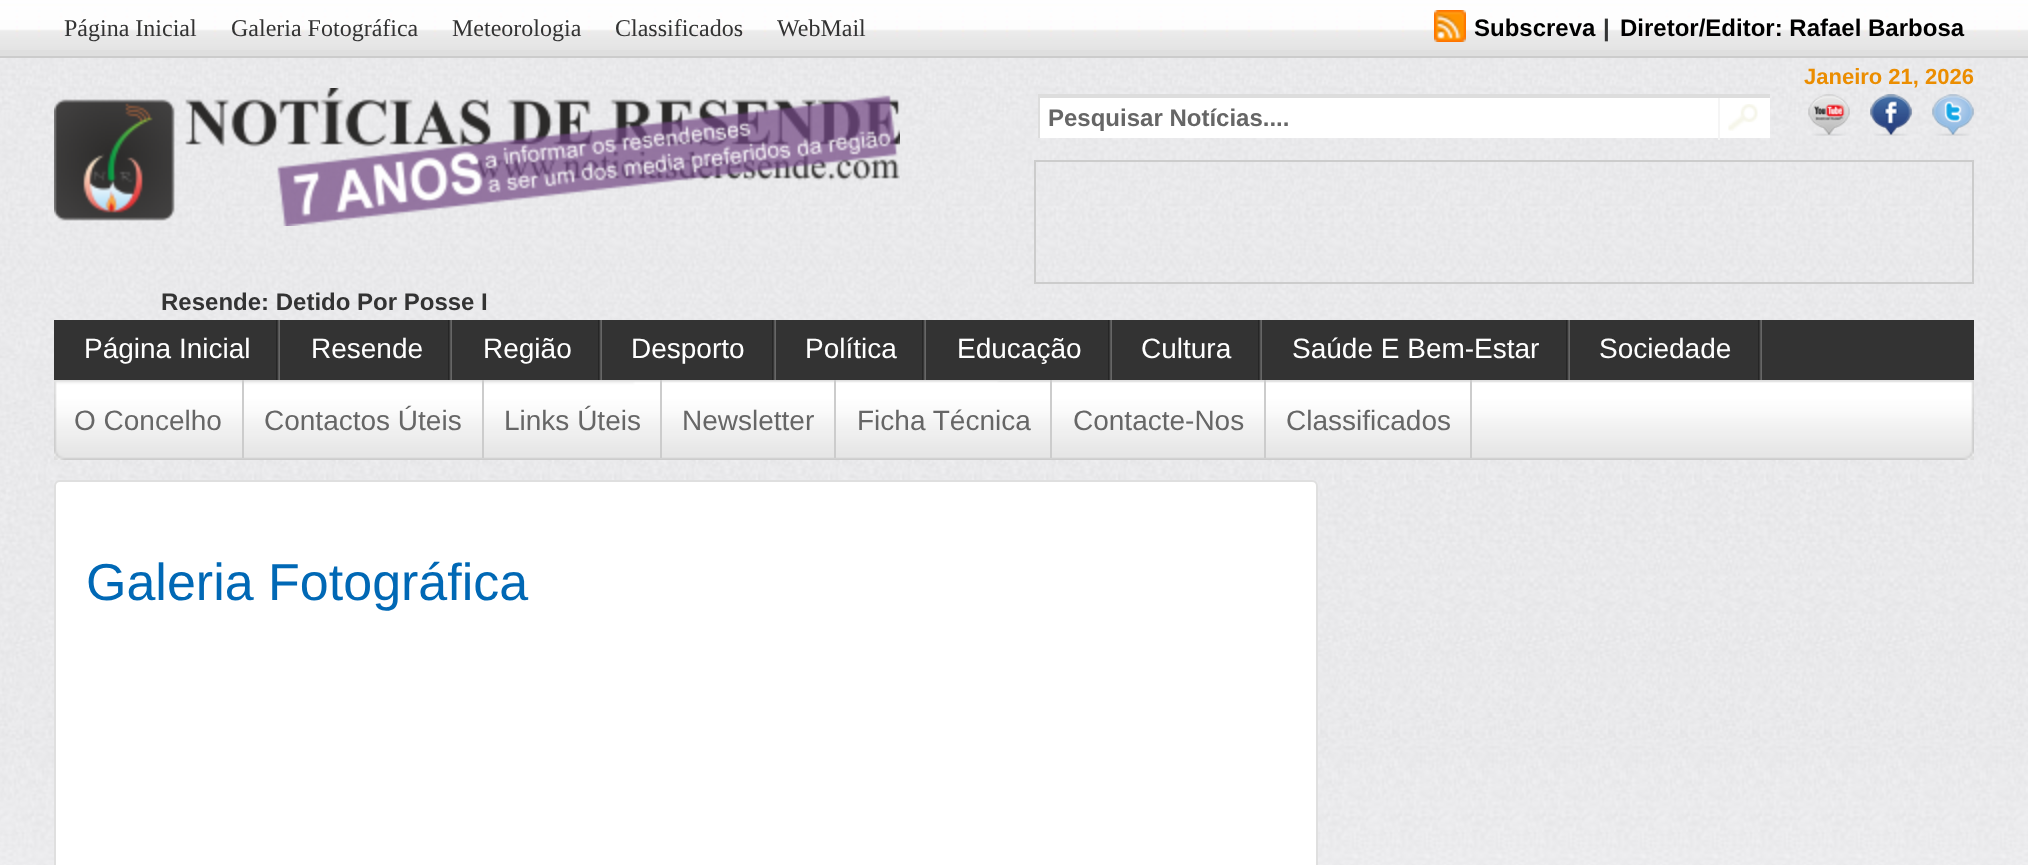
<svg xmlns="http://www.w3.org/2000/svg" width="2028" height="865">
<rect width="100%" height="100%" fill="#fff"/>
<image x="0" y="58" width="2028" height="807" href="media/1.png"/>
<rect y="50" width="2028" height="6" fill="#dfdfdf"/>
<image x="0" y="0" width="2028" height="50" href="media/2.png"/>
<rect y="56" width="2028" height="2" fill="#ccc"/>
<text x="64" y="36" style="font-family:Liberation Serif;font-size:24px;fill:#333">Página Inicial</text>
<text x="231" y="36" style="font-family:Liberation Serif;font-size:24px;fill:#333">Galeria Fotográfica</text>
<text x="452" y="36" style="font-family:Liberation Serif;font-size:24px;fill:#333">Meteorologia</text>
<text x="615" y="36" style="font-family:Liberation Serif;font-size:24px;fill:#333">Classificados</text>
<text x="777" y="36" style="font-family:Liberation Serif;font-size:24px;fill:#333">WebMail</text>
<image x="1434" y="10" width="32" height="32" href="media/3.png"/>
<text x="1474" y="36" style="font-family:Liberation Sans;font-size:24px;font-weight:bold;fill:#000">Subscreva</text>
<text x="1603" y="36" style="font-family:Liberation Sans;font-size:24px;font-weight:bold;fill:#333">|</text>
<text x="1620" y="36" style="font-family:Liberation Sans;font-size:24px;font-weight:bold;fill:#000">Diretor/Editor: Rafael Barbosa</text>
<image x="54" y="88" width="846" height="138" href="media/4.png"/>
<text x="1804" y="84" style="font-family:Liberation Sans;font-size:22px;font-weight:bold;fill:#eb8d00">Janeiro 21, 2026</text>
<rect x="1040" y="98" width="730" height="40" fill="#fff"/>
<rect x="1038" y="94" width="732" height="4" fill="#ddd"/>
<rect x="1038" y="94" width="2" height="44" fill="#ddd"/>
<text x="1048" y="126" style="font-family:Liberation Sans;font-size:24px;font-weight:bold;fill:#666">Pesquisar Notícias....</text>
<rect x="1718" y="98" width="2" height="42" fill="#f5f5f5"/>
<image x="1728" y="104" width="30" height="27" href="media/5.png"/>
<image x="1808" y="94" width="42" height="42" href="media/6.png"/>
<image x="1870" y="94" width="42" height="42" href="media/7.png"/>
<image x="1932" y="94" width="42" height="42" href="media/8.png"/>
<rect x="1035" y="161" width="938" height="122" fill="none" stroke="#ccc" stroke-width="2"/>
<text x="161" y="310" style="font-family:Liberation Sans;font-size:24px;font-weight:bold;fill:#333">Resende: Detido Por Posse I</text>
<rect x="54" y="320" width="1920" height="60" fill="#333"/>
<image x="276" y="320" width="4" height="60" href="media/9.png"/>
<text x="84" y="358" style="font-family:Liberation Sans;font-size:28px;fill:#fff">Página Inicial</text>
<image x="448" y="320" width="4" height="60" href="media/9.png"/>
<text x="311" y="358" style="font-family:Liberation Sans;font-size:28px;fill:#fff">Resende</text>
<image x="598" y="320" width="4" height="60" href="media/9.png"/>
<text x="483" y="358" style="font-family:Liberation Sans;font-size:28px;fill:#fff">Região</text>
<image x="772" y="320" width="4" height="60" href="media/9.png"/>
<text x="631" y="358" style="font-family:Liberation Sans;font-size:28px;fill:#fff">Desporto</text>
<image x="922" y="320" width="4" height="60" href="media/9.png"/>
<text x="805" y="358" style="font-family:Liberation Sans;font-size:28px;fill:#fff">Política</text>
<image x="1108" y="320" width="4" height="60" href="media/9.png"/>
<text x="957" y="358" style="font-family:Liberation Sans;font-size:28px;fill:#fff">Educação</text>
<image x="1258" y="320" width="4" height="60" href="media/9.png"/>
<text x="1141" y="358" style="font-family:Liberation Sans;font-size:28px;fill:#fff">Cultura</text>
<image x="1566" y="320" width="4" height="60" href="media/9.png"/>
<text x="1292" y="358" style="font-family:Liberation Sans;font-size:28px;fill:#fff">Saúde E Bem-Estar</text>
<image x="1758" y="320" width="4" height="60" href="media/9.png"/>
<text x="1599" y="358" style="font-family:Liberation Sans;font-size:28px;fill:#fff">Sociedade</text>
<rect x="54" y="380" width="1920" height="80" fill="#dfdfdf"/>
<image x="54" y="381" width="1920" height="79" href="media/10.png"/>
<rect x="242" y="380" width="2" height="78" fill="#ccc"/>
<text x="74" y="430" style="font-family:Liberation Sans;font-size:28px;fill:#666">O Concelho</text>
<rect x="482" y="380" width="2" height="78" fill="#ccc"/>
<text x="264" y="430" style="font-family:Liberation Sans;font-size:28px;fill:#666">Contactos Úteis</text>
<rect x="660" y="380" width="2" height="78" fill="#ccc"/>
<text x="504" y="430" style="font-family:Liberation Sans;font-size:28px;fill:#666">Links Úteis</text>
<rect x="834" y="380" width="2" height="78" fill="#ccc"/>
<text x="682" y="430" style="font-family:Liberation Sans;font-size:28px;fill:#666">Newsletter</text>
<rect x="1050" y="380" width="2" height="78" fill="#ccc"/>
<text x="857" y="430" style="font-family:Liberation Sans;font-size:28px;fill:#666">Ficha Técnica</text>
<rect x="1264" y="380" width="2" height="78" fill="#ccc"/>
<text x="1073" y="430" style="font-family:Liberation Sans;font-size:28px;fill:#666">Contacte-Nos</text>
<rect x="1470" y="380" width="2" height="78" fill="#ccc"/>
<text x="1286" y="430" style="font-family:Liberation Sans;font-size:28px;fill:#666">Classificados</text>
<rect x="55" y="481" width="1262" height="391" rx="5" fill="#fff" stroke="#dfdfdf" stroke-width="2"/>
<text x="86" y="600" style="font-family:Liberation Sans;font-size:52px;fill:#0068b5">Galeria Fotográfica</text>
</svg>
